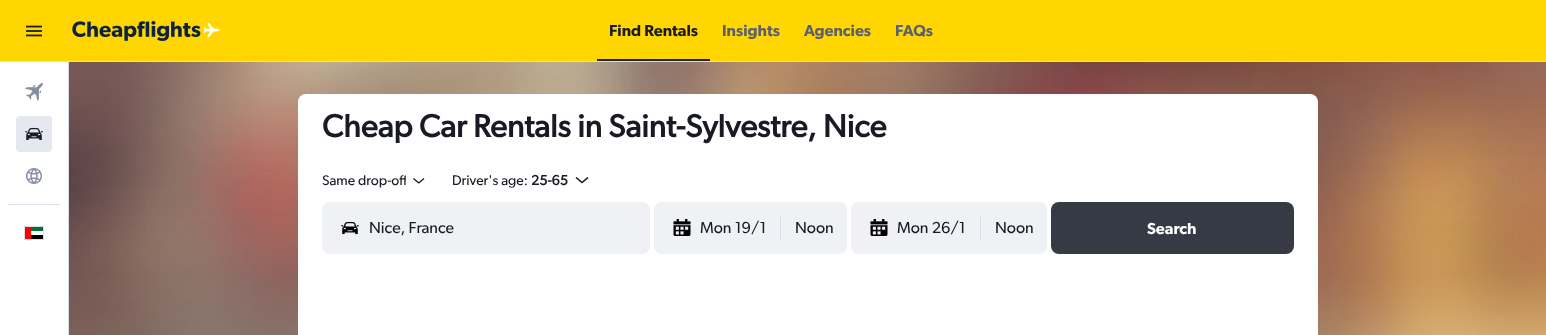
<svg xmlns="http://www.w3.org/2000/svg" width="1546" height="335">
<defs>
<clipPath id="clip1"><rect x="322" y="170" width="84" height="20"/></clipPath>
</defs>
<rect width="100%" height="100%" fill="#fff"/>
<rect y="61" width="1546" height="1" fill="#d9dde8"/>
<rect width="1546" height="61" fill="#ffd600"/>
<image x="26" y="25" width="16" height="12" href="media/1.png"/>
<image x="72" y="21" width="148" height="20" href="media/2.png"/>
<rect x="597" y="59" width="113" height="2" fill="#1f232d"/>
<text x="609" y="36" style="font-family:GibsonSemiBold;font-size:16px;font-weight:600;fill:#191b24">Find Rentals</text>
<text x="722" y="36" style="font-family:GibsonSemiBold;font-size:16px;font-weight:600;fill:#5a6072">Insights</text>
<text x="804" y="36" style="font-family:GibsonSemiBold;font-size:16px;font-weight:600;fill:#5a6072">Agencies</text>
<text x="895" y="36" style="font-family:GibsonSemiBold;font-size:16px;font-weight:600;fill:#5a6072">FAQs</text>
<rect x="68" y="62" width="1" height="273" fill="#d9dde8"/>
<image x="25" y="83" width="18" height="18" href="media/3.png"/>
<rect x="16" y="116" width="36" height="36" rx="4" fill="#e6e8ef"/>
<image x="25" y="127" width="18" height="13" href="media/4.png"/>
<image x="26" y="168" width="16" height="16" href="media/5.png"/>
<rect x="8" y="204" width="52" height="1" fill="#d9dde8"/>
<rect x="24.5" y="226.5" width="19" height="13" fill="none" stroke="#d9dde8"/>
<rect x="25" y="227" width="18" height="4" fill="#00732f"/>
<rect x="25" y="235" width="18" height="4" fill="#000"/>
<rect x="25" y="227" width="6" height="12" fill="#f00"/>
<image x="69" y="62" width="1477" height="273" href="media/6.png"/>
<rect x="298" y="94" width="1020" height="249" rx="8" fill="#fff"/>
<text x="322" y="137" style="font-family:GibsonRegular;font-size:32px;font-weight:bold;fill:#191b24">Cheap Car Rentals in Saint-Sylvestre, Nice</text>
<g clip-path="url(#clip1)">
<text x="322" y="185" style="font-family:GibsonRegular;font-size:14px;fill:#191b24">Same drop-off</text>
</g>
<image x="413" y="178" width="12" height="6" href="media/7.png"/>
<text x="452" y="185" style="font-family:GibsonRegular;font-size:14px;fill:#191b24">Driver's age:</text>
<text x="531" y="185" style="font-family:GibsonRegular;font-size:14px;font-weight:bold;fill:#191b24">25-65</text>
<image x="575" y="177" width="14" height="7" href="media/8.png"/>
<rect x="322.5" y="202.5" width="327" height="51" rx="7.5" fill="#f0f1f5" stroke="#f0f1f5"/>
<image x="341" y="221" width="18" height="13" href="media/9.png"/>
<text x="369" y="233" style="font-family:GibsonRegular;font-size:16px;fill:#191b24">Nice, France</text>
<rect x="654" y="202" width="193" height="52" rx="8" fill="#f0f1f5"/>
<rect x="654" y="202" width="125" height="52" rx="8" fill="#f0f1f5"/>
<image x="673" y="219" width="18" height="17" href="media/10.png"/>
<text x="700" y="233" style="font-family:GibsonRegular;font-size:16px;fill:#191b24">Mon 19/1</text>
<rect x="780" y="216" width="1" height="24" fill="#d9dde8"/>
<text x="795" y="233" style="font-family:GibsonRegular;font-size:16px;fill:#191b24">Noon</text>
<rect x="851" y="202" width="196" height="52" rx="8" fill="#f0f1f5"/>
<rect x="851" y="202" width="128" height="52" rx="8" fill="#f0f1f5"/>
<image x="870" y="219" width="18" height="17" href="media/10.png"/>
<text x="897" y="233" style="font-family:GibsonRegular;font-size:16px;fill:#191b24">Mon 26/1</text>
<rect x="980" y="216" width="1" height="24" fill="#d9dde8"/>
<text x="995" y="233" style="font-family:GibsonRegular;font-size:16px;fill:#191b24">Noon</text>
<rect x="1051" y="202" width="243" height="52" rx="8" fill="#363a45"/>
<text x="1147" y="234" style="font-family:GibsonSemiBold;font-size:16px;font-weight:600;fill:#fff">Search</text>
</svg>
